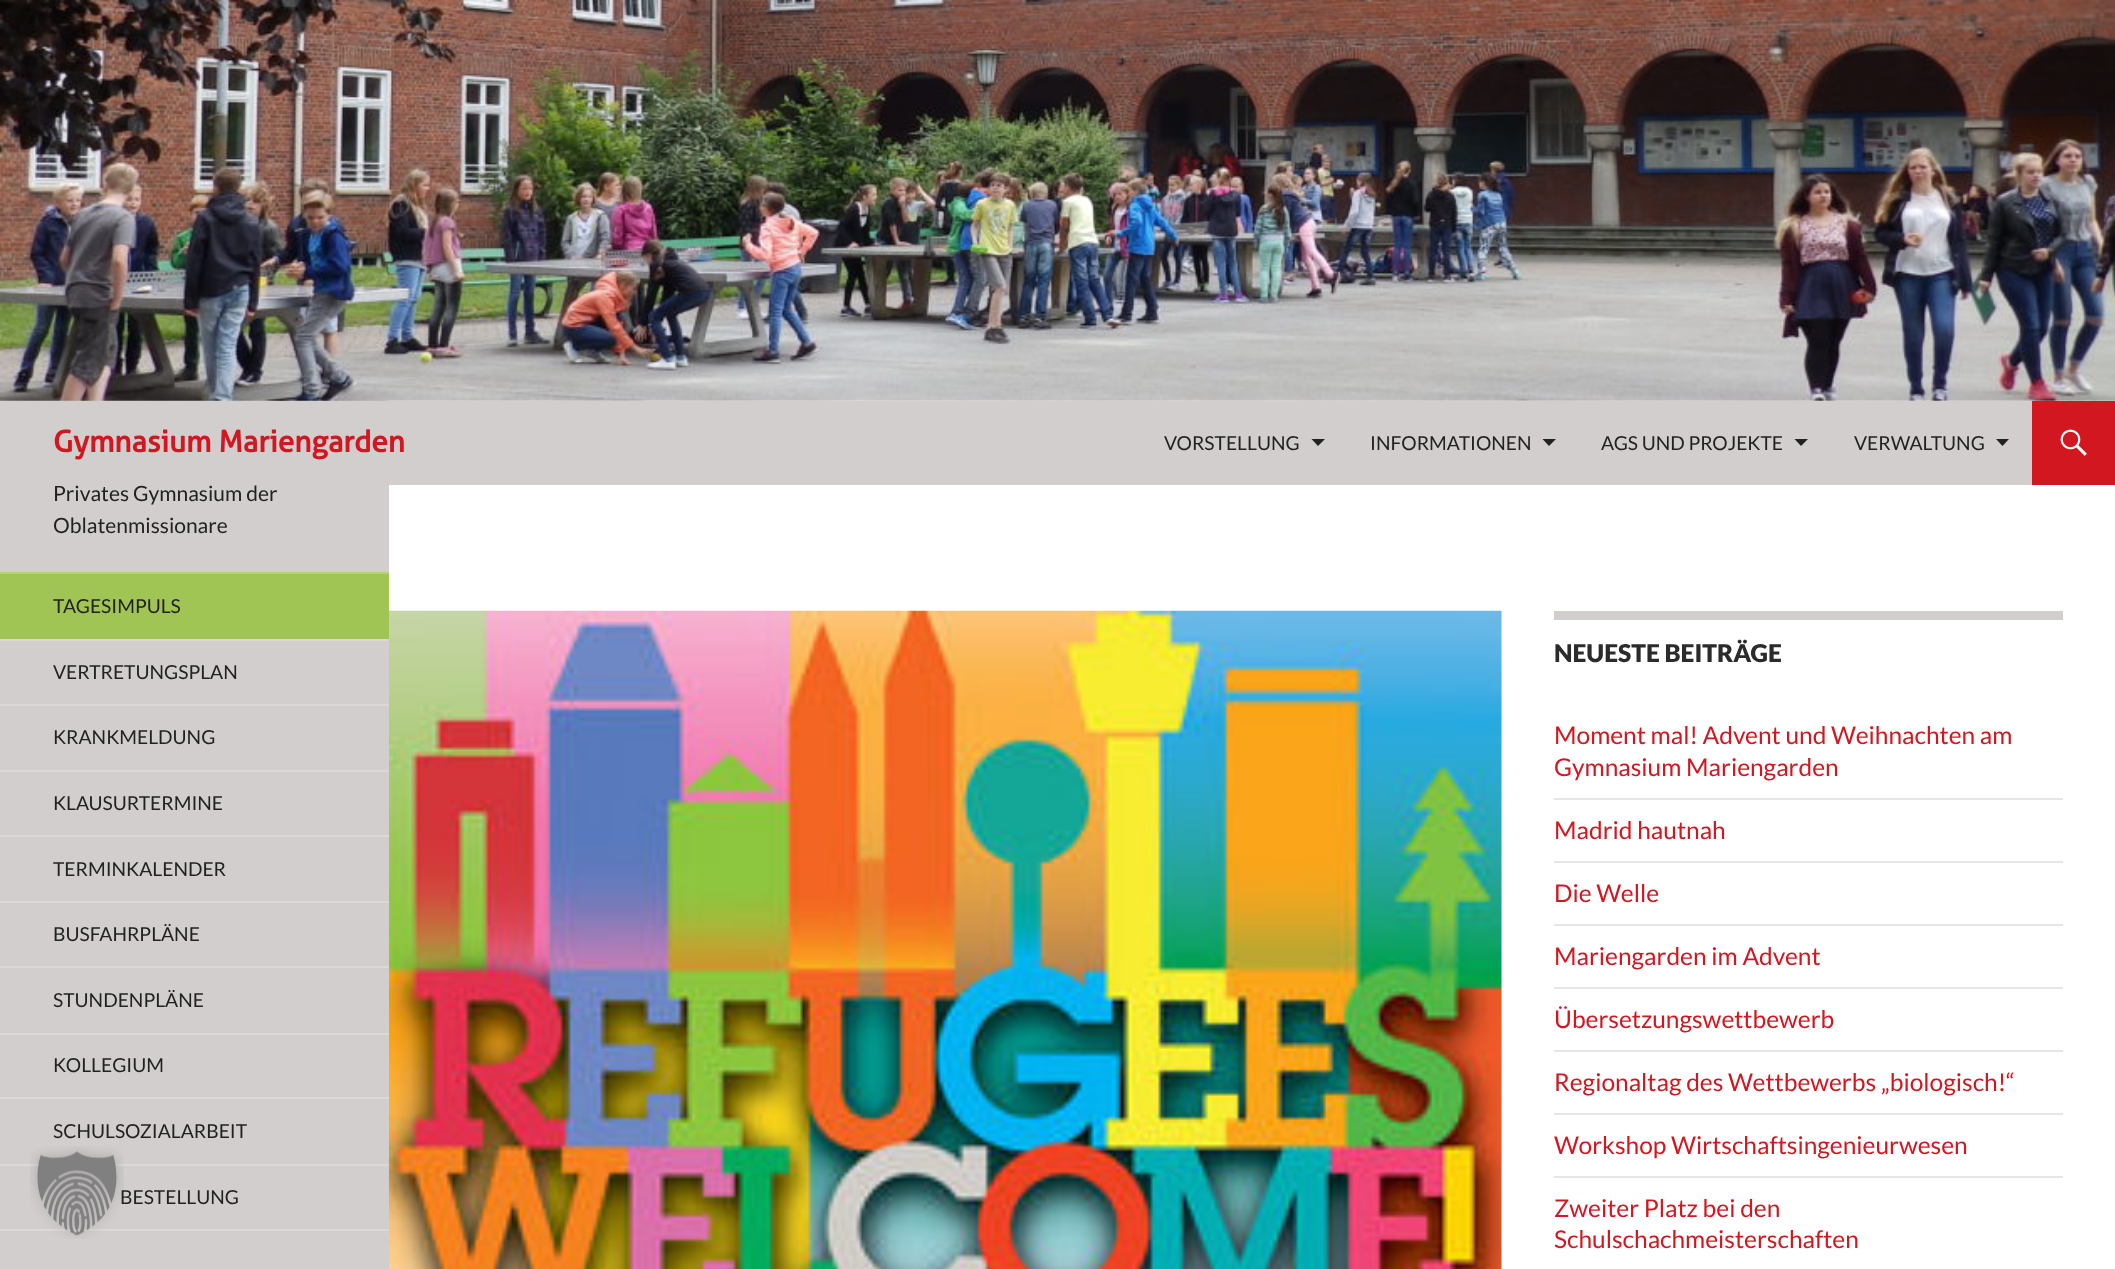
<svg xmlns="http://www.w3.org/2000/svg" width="2115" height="1269">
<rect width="100%" height="100%" fill="#fff"/>
<rect y="400" width="389" height="869" fill="#d3cece"/>
<image x="0" y="0" width="2115" height="401" href="media/1.png"/>
<rect x="389" y="401" width="1643" height="84" fill="#d3cece"/>
<text x="53" y="452" style="font-family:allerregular;font-size:29.75px;font-weight:bold;fill:#d21720">Gymnasium Mariengarden</text>
<text x="1164" y="450" style="font-family:Lato;font-size:19.25px;fill:#222">VORSTELLUNG</text>
<path d="M1311.5 439l6.5 7l7-7z" fill="#222"/>
<text x="1370" y="450" style="font-family:Lato;font-size:19.25px;fill:#222">INFORMATIONEN</text>
<path d="M1542.5 439l6.5 7l7-7z" fill="#222"/>
<text x="1601" y="450" style="font-family:Lato;font-size:19.25px;fill:#222">AGS UND PROJEKTE</text>
<path d="M1794.5 439l6.5 7l7-7z" fill="#222"/>
<text x="1854" y="450" style="font-family:Lato;font-size:19.25px;fill:#222">VERWALTUNG</text>
<path d="M1996 439l6.5 7l6.5-7z" fill="#222"/>
<rect x="2032" y="401" width="83" height="84" fill="#d21720"/>
<image x="2060" y="429" width="27" height="27" href="media/2.png"/>
<text x="53" y="501" style="font-family:Lato;font-size:21px;fill:#222">Privates Gymnasium der</text>
<text x="53" y="533" style="font-family:Lato;font-size:21px;fill:#222">Oblatenmissionare</text>
<rect y="1229" width="389" height="2" fill="#dcd8d8"/>
<rect y="574" width="389" height="65" fill="#a0c554"/>
<rect y="572" width="389" height="2" fill="#b3d176"/>
<text x="53" y="613" style="font-family:Lato;font-size:19.25px;fill:#222">TAGESIMPULS</text>
<rect y="639" width="389" height="2" fill="#dcd8d8"/>
<text x="53" y="679" style="font-family:Lato;font-size:19.25px;fill:#222">VERTRETUNGSPLAN</text>
<rect y="704" width="389" height="2" fill="#dcd8d8"/>
<text x="53" y="744" style="font-family:Lato;font-size:19.25px;fill:#222">KRANKMELDUNG</text>
<rect y="770" width="389" height="2" fill="#dcd8d8"/>
<text x="53" y="810" style="font-family:Lato;font-size:19.25px;fill:#222">KLAUSURTERMINE</text>
<rect y="835" width="389" height="2" fill="#dcd8d8"/>
<text x="53" y="876" style="font-family:Lato;font-size:19.25px;fill:#222">TERMINKALENDER</text>
<rect y="901" width="389" height="2" fill="#dcd8d8"/>
<text x="53" y="941" style="font-family:Lato;font-size:19.25px;fill:#222">BUSFAHRPLÄNE</text>
<rect y="966" width="389" height="2" fill="#dcd8d8"/>
<text x="53" y="1007" style="font-family:Lato;font-size:19.25px;fill:#222">STUNDENPLÄNE</text>
<rect y="1033" width="389" height="2" fill="#dcd8d8"/>
<text x="53" y="1072" style="font-family:Lato;font-size:19.25px;fill:#222">KOLLEGIUM</text>
<rect y="1097" width="389" height="2" fill="#dcd8d8"/>
<text x="53" y="1138" style="font-family:Lato;font-size:19.25px;fill:#222">SCHULSOZIALARBEIT</text>
<rect y="1164" width="389" height="2" fill="#dcd8d8"/>
<text x="120" y="1204" style="font-family:Lato;font-size:19.25px;fill:#222">BESTELLUNG</text>
<image x="389" y="610" width="1113" height="659" href="media/3.png"/>
<rect x="1554" y="611" width="509" height="9" fill="#d3cece"/>
<text x="1554" y="662" style="font-family:Lato;font-size:24.5px;font-weight:900;fill:#2b2b2b">NEUESTE BEITRÄGE</text>
<text x="1554" y="744" style="font-family:Lato;font-size:24.5px;fill:#d21720">Moment mal! Advent und Weihnachten am</text>
<text x="1554" y="776" style="font-family:Lato;font-size:24.5px;fill:#d21720">Gymnasium Mariengarden</text>
<rect x="1554" y="798" width="509" height="2" fill="#e6e6e6"/>
<text x="1554" y="839" style="font-family:Lato;font-size:24.5px;fill:#d21720">Madrid hautnah</text>
<rect x="1554" y="861" width="509" height="2" fill="#e6e6e6"/>
<text x="1554" y="902" style="font-family:Lato;font-size:24.5px;fill:#d21720">Die Welle</text>
<rect x="1554" y="924" width="509" height="2" fill="#e6e6e6"/>
<text x="1554" y="965" style="font-family:Lato;font-size:24.5px;fill:#d21720">Mariengarden im Advent</text>
<rect x="1554" y="987" width="509" height="2" fill="#e6e6e6"/>
<text x="1554" y="1028" style="font-family:Lato;font-size:24.5px;fill:#d21720">Übersetzungswettbewerb</text>
<rect x="1554" y="1050" width="509" height="2" fill="#e6e6e6"/>
<text x="1554" y="1091" style="font-family:Lato;font-size:24.5px;fill:#d21720">Regionaltag des Wettbewerbs „biologisch!“</text>
<rect x="1554" y="1113" width="509" height="2" fill="#e6e6e6"/>
<text x="1554" y="1154" style="font-family:Lato;font-size:24.5px;fill:#d21720">Workshop Wirtschaftsingenieurwesen</text>
<rect x="1554" y="1176" width="509" height="2" fill="#e6e6e6"/>
<text x="1554" y="1217" style="font-family:Lato;font-size:24.5px;fill:#d21720">Zweiter Platz bei den</text>
<text x="1554" y="1248" style="font-family:Lato;font-size:24.5px;fill:#d21720">Schulschachmeisterschaften</text>
<image x="30" y="1146" width="94" height="93" href="media/4.png"/>
</svg>
